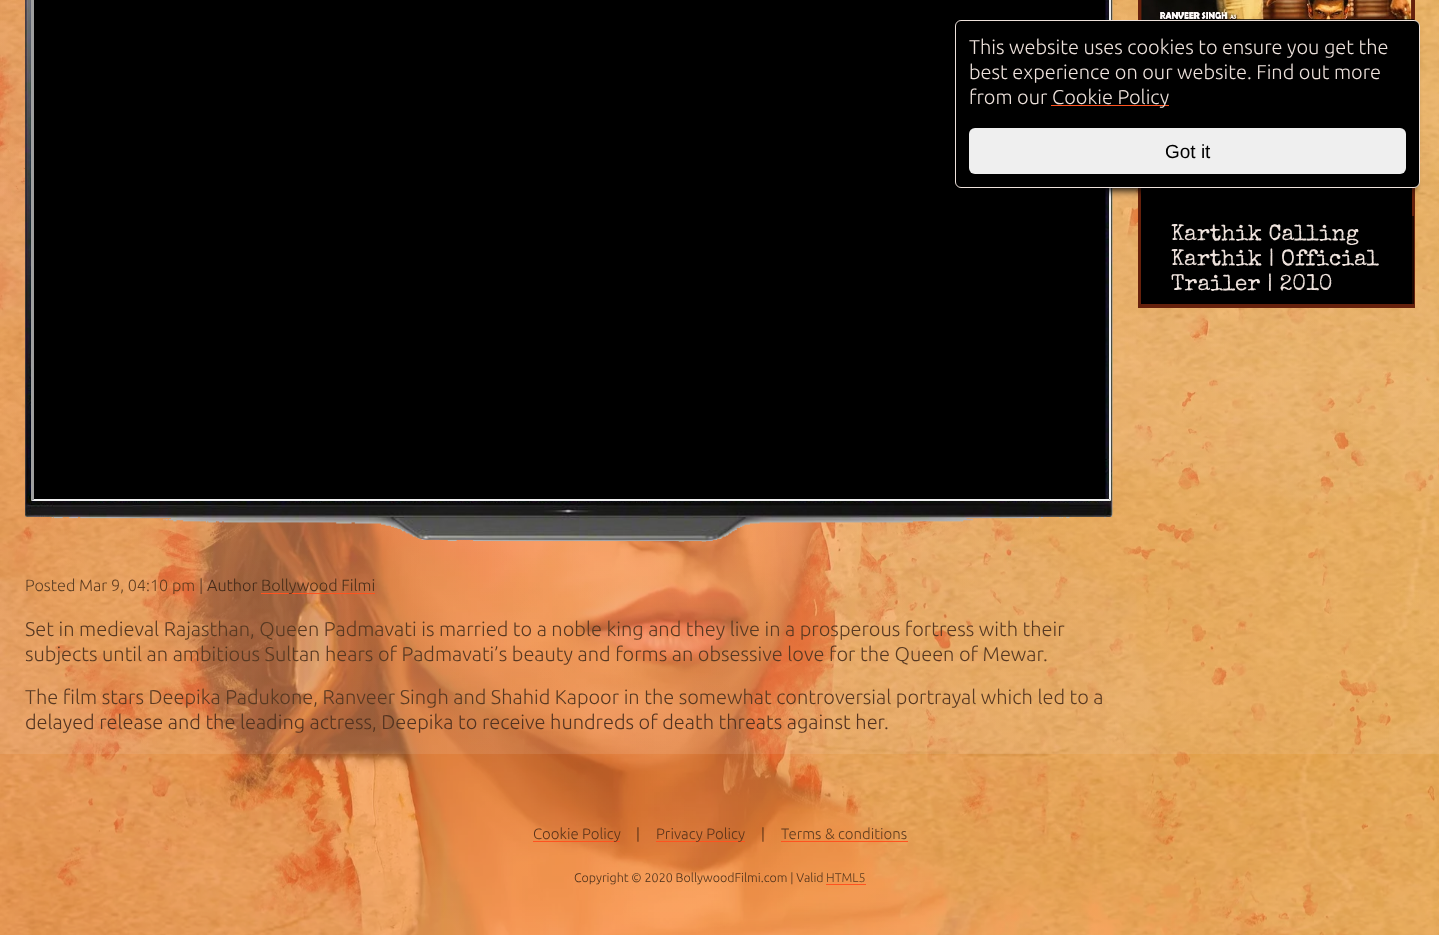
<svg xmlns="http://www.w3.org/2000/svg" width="1439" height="935">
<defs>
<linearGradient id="g1" gradientUnits="userSpaceOnUse" x1="-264" y1="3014" x2="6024" y2="726"><stop offset="0" stop-color="#ff531f"/><stop offset="1" stop-color="#f6f92b"/></linearGradient>
<linearGradient id="g2" gradientUnits="userSpaceOnUse" x1="720" y1="-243" x2="720" y2="754"><stop offset="0" stop-color="#eee2dc" stop-opacity="0"/><stop offset="0.3" stop-color="#eee2dc" stop-opacity="0.2"/><stop offset="1" stop-color="#eee2dc" stop-opacity="0.2"/></linearGradient>
</defs>
<rect width="100%" height="100%" fill="#fff"/>
<rect width="1439" height="935" fill="url(#g1)"/>
<image x="0" y="0" width="1439" height="935" href="media/1.png"/>
<rect width="1439" height="754" fill="url(#g2)"/>
<rect x="1140" y="-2" width="273" height="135" fill="none" stroke="#66210c" stroke-width="4"/>
<rect x="1140" y="150" width="273" height="156" fill="none" stroke="#66210c" stroke-width="4"/>
<rect x="1141" y="188" width="271" height="116" fill="#000"/>
<image x="25" y="0" width="1088" height="542" href="media/3.png"/>
<path d="M1111-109v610l-2-2v-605z" fill="#eee"/>
<rect x="963" y="38" width="450" height="152" fill="#000" filter="blur(4px)"/>
<rect x="955.5" y="20.5" width="464" height="167" rx="5.5" fill="#000" stroke="#eee2dc"/>
<text x="969" y="54" style="font-family:Ubuntu;font-size:20px;font-weight:300;fill:#eee2dc">This website uses cookies to ensure you get the</text>
<text x="969" y="79" style="font-family:Ubuntu;font-size:20px;font-weight:300;fill:#eee2dc">best experience on our website. Find out more</text>
<text x="969" y="104" style="font-family:Ubuntu;font-size:20px;font-weight:300;fill:#eee2dc">from our</text>
<rect x="1051" y="105" width="118" height="1" fill="#ff531f"/>
<text x="1052" y="104" style="font-family:Ubuntu;font-size:20px;font-weight:300;fill:#eee2dc">Cookie Policy</text>
<rect x="969" y="128" width="437" height="46" rx="6" fill="#efefef"/>
<text x="1165" y="158" style="font-family:Liberation Sans;font-size:19px;fill:#000">Got it</text>
<image x="1141" y="0" width="271" height="20" href="media/2.png"/>
<rect x="1165" y="19" width="249" height="1" fill="#000000b3"/>
<rect x="1412" y="216" width="2" height="88" fill="#000000b3"/>
<text x="1171" y="240" style="font-family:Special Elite;font-size:22.5px;fill:#eee2dc">Karthik Calling</text>
<text x="1171" y="265" style="font-family:Special Elite;font-size:22.5px;fill:#eee2dc">Karthik | Official</text>
<text x="1171" y="290" style="font-family:Special Elite;font-size:22.5px;fill:#eee2dc">Trailer | 2010</text>
<path d="M1111 501h-1080l3-2h1075z" fill="#eee"/>
<path d="M31 501v-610l3 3v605z" fill="#9f9f9f"/>
<text x="25" y="591" style="font-family:Ubuntu;font-size:16.25px;font-weight:300;fill:#5c3f25">Posted</text>
<text x="79" y="591" style="font-family:Ubuntu;font-size:16.25px;font-weight:300;fill:#5e3b1e">Mar 9, 04:10 pm</text>
<text x="199" y="591" style="font-family:Ubuntu;font-size:16.25px;font-weight:300;fill:#533320">|</text>
<text x="207" y="591" style="font-family:Ubuntu;font-size:16.25px;font-weight:300;fill:#422919">Author</text>
<rect x="261" y="593" width="114" height="1" fill="#ff531f"/>
<text x="261" y="591" style="font-family:Ubuntu;font-size:16.25px;font-weight:300;fill:#492e19">Bollywood Filmi</text>
<text x="25" y="636" style="font-family:Ubuntu;font-size:20px;font-weight:300;fill:#583922">Set in medieval Rajasthan, Queen Padmavati is married to a noble king and they live in a prosperous fortress with their</text>
<text x="25" y="661" style="font-family:Ubuntu;font-size:20px;font-weight:300;fill:#583922">subjects until an ambitious Sultan hears of Padmavati’s beauty and forms an obsessive love for the Queen of Mewar.</text>
<text x="25" y="704" style="font-family:Ubuntu;font-size:20px;font-weight:300;fill:#583922">The film stars Deepika Padukone, Ranveer Singh and Shahid Kapoor in the somewhat controversial portrayal which led to a</text>
<text x="25" y="729" style="font-family:Ubuntu;font-size:20px;font-weight:300;fill:#533320">delayed release and the leading actress, Deepika to receive hundreds of death threats against her.</text>
<rect y="754" width="1439" height="181" fill="#eee2dc1a"/>
<rect x="533" y="841" width="87" height="1" fill="#ff531f"/>
<text x="533" y="839" style="font-family:Ubuntu;font-size:15px;font-weight:300;fill:#593219">Cookie Policy</text>
<text x="636" y="839" style="font-family:Ubuntu;font-size:15px;font-weight:300;fill:#412410">|</text>
<rect x="656" y="841" width="89" height="1" fill="#ff531f"/>
<text x="656" y="839" style="font-family:Ubuntu;font-size:15px;font-weight:300;fill:#593219">Privacy Policy</text>
<text x="761" y="839" style="font-family:Ubuntu;font-size:15px;font-weight:300;fill:#412410">|</text>
<text x="781" y="839" style="font-family:Ubuntu;font-size:15px;font-weight:300;fill:#5e3b1e">Terms &amp; conditions</text>
<rect x="781" y="841" width="127" height="1" fill="#ff531f"/>
<text x="574" y="882" style="font-family:Ubuntu;font-size:12.5px;font-weight:300;fill:#492e19">Copyright © 2020 BollywoodFilmi.com | Valid</text>
<text x="826" y="882" style="font-family:Ubuntu;font-size:12.5px;font-weight:300;fill:#5e3b1e">HTML5</text>
<rect x="826" y="884" width="40" height="1" fill="#ff531f"/>
</svg>
